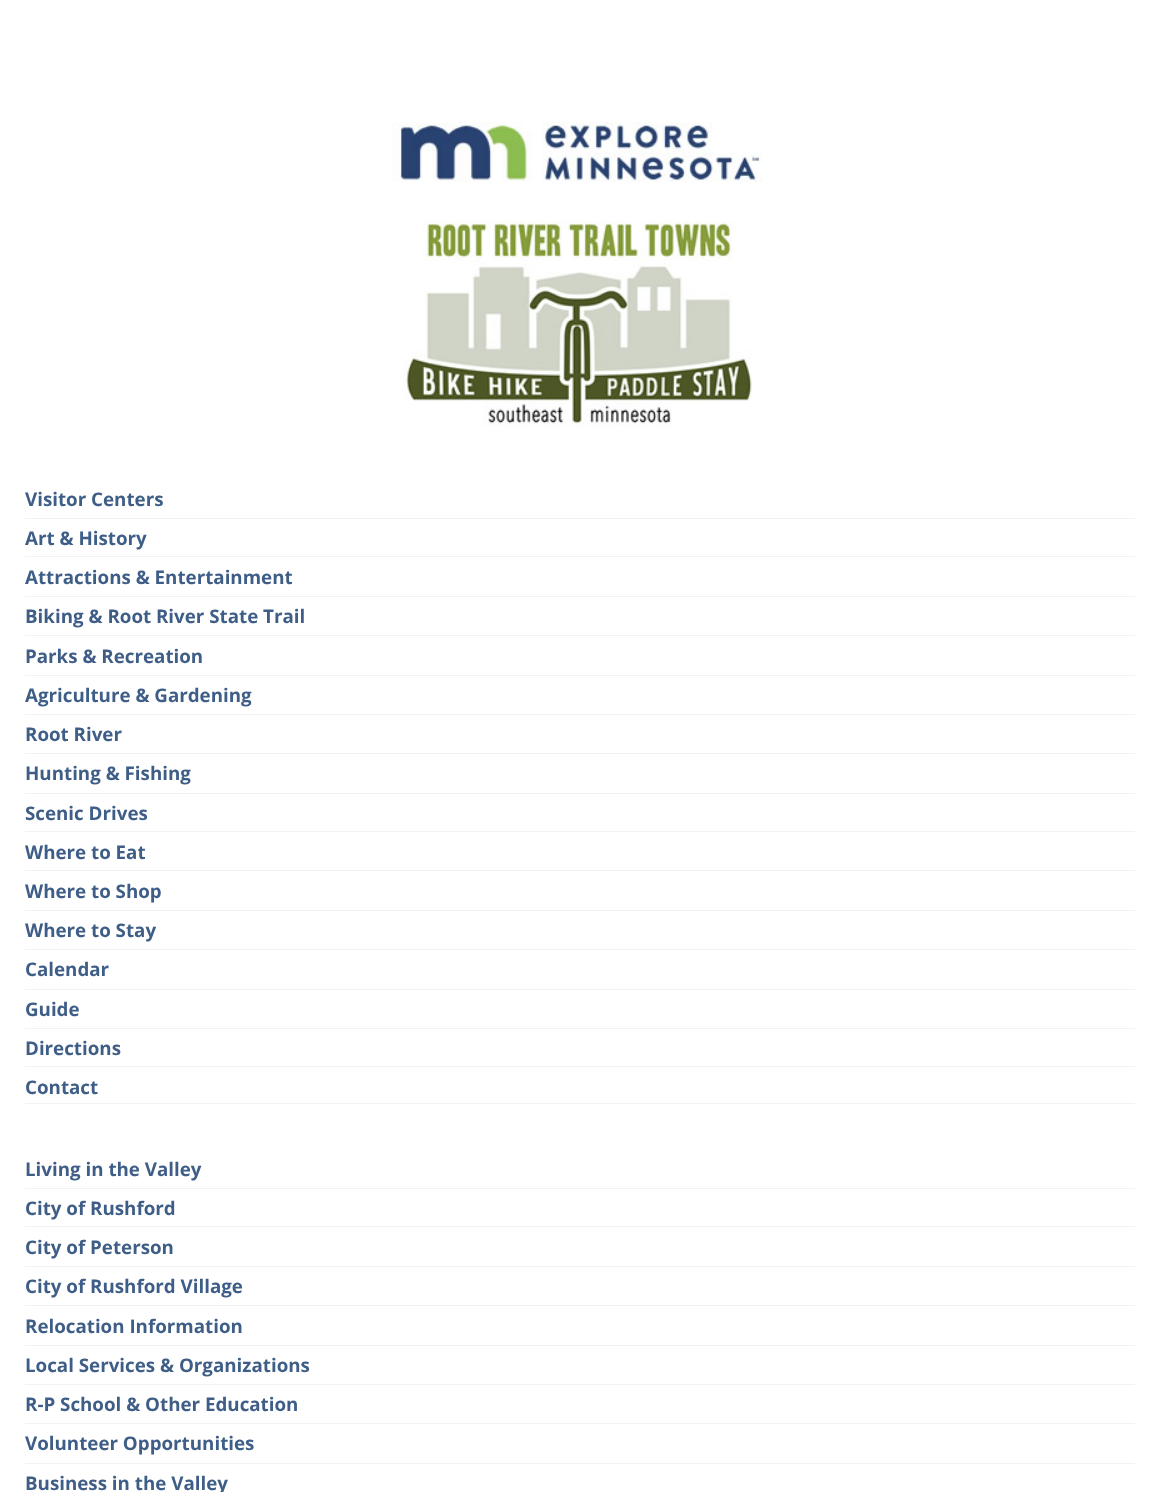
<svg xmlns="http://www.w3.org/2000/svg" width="1160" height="1492">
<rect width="100%" height="100%" fill="#fff"/>
<image x="392" y="122" width="371" height="60" href="media/1.png"/>
<image x="403" y="220" width="349" height="207" href="media/2.png"/>
<rect x="25" y="518" width="1110" height="1" fill="#f1f2f3"/>
<text x="25" y="506" style="font-family:Open Sans;font-size:18.75px;font-weight:bold;fill:#3f5e87">Visitor Centers</text>
<rect x="25" y="556" width="1110" height="1" fill="#f1f2f3"/>
<text x="25" y="545" style="font-family:Open Sans;font-size:18.75px;font-weight:bold;fill:#3f5e87">Art &amp; History</text>
<rect x="25" y="596" width="1110" height="1" fill="#f1f2f3"/>
<text x="25" y="584" style="font-family:Open Sans;font-size:18.75px;font-weight:bold;fill:#3f5e87">Attractions &amp; Entertainment</text>
<rect x="25" y="635" width="1110" height="1" fill="#f1f2f3"/>
<text x="25" y="623" style="font-family:Open Sans;font-size:18.75px;font-weight:bold;fill:#3f5e87">Biking &amp; Root River State Trail</text>
<rect x="25" y="675" width="1110" height="1" fill="#f1f2f3"/>
<text x="25" y="663" style="font-family:Open Sans;font-size:18.75px;font-weight:bold;fill:#3f5e87">Parks &amp; Recreation</text>
<rect x="25" y="714" width="1110" height="1" fill="#f1f2f3"/>
<text x="25" y="702" style="font-family:Open Sans;font-size:18.75px;font-weight:bold;fill:#3f5e87">Agriculture &amp; Gardening</text>
<rect x="25" y="753" width="1110" height="1" fill="#f1f2f3"/>
<text x="25" y="741" style="font-family:Open Sans;font-size:18.75px;font-weight:bold;fill:#3f5e87">Root River</text>
<rect x="25" y="793" width="1110" height="1" fill="#f1f2f3"/>
<text x="25" y="780" style="font-family:Open Sans;font-size:18.75px;font-weight:bold;fill:#3f5e87">Hunting &amp; Fishing</text>
<rect x="25" y="831" width="1110" height="1" fill="#f1f2f3"/>
<text x="25" y="820" style="font-family:Open Sans;font-size:18.75px;font-weight:bold;fill:#3f5e87">Scenic Drives</text>
<rect x="25" y="870" width="1110" height="1" fill="#f1f2f3"/>
<text x="25" y="859" style="font-family:Open Sans;font-size:18.75px;font-weight:bold;fill:#3f5e87">Where to Eat</text>
<rect x="25" y="910" width="1110" height="1" fill="#f1f2f3"/>
<text x="25" y="898" style="font-family:Open Sans;font-size:18.75px;font-weight:bold;fill:#3f5e87">Where to Shop</text>
<rect x="25" y="949" width="1110" height="1" fill="#f1f2f3"/>
<text x="25" y="937" style="font-family:Open Sans;font-size:18.75px;font-weight:bold;fill:#3f5e87">Where to Stay</text>
<rect x="25" y="989" width="1110" height="1" fill="#f1f2f3"/>
<text x="25" y="976" style="font-family:Open Sans;font-size:18.75px;font-weight:bold;fill:#3f5e87">Calendar</text>
<rect x="25" y="1028" width="1110" height="1" fill="#f1f2f3"/>
<text x="25" y="1016" style="font-family:Open Sans;font-size:18.75px;font-weight:bold;fill:#3f5e87">Guide</text>
<rect x="25" y="1066" width="1110" height="1" fill="#f1f2f3"/>
<text x="25" y="1055" style="font-family:Open Sans;font-size:18.75px;font-weight:bold;fill:#3f5e87">Directions</text>
<rect x="25" y="1103" width="1110" height="1" fill="#f1f2f3"/>
<text x="25" y="1094" style="font-family:Open Sans;font-size:18.75px;font-weight:bold;fill:#3f5e87">Contact</text>
<rect x="25" y="1188" width="1110" height="1" fill="#f1f2f3"/>
<text x="25" y="1176" style="font-family:Open Sans;font-size:18.75px;font-weight:bold;fill:#3f5e87">Living in the Valley</text>
<rect x="25" y="1226" width="1110" height="1" fill="#f1f2f3"/>
<text x="25" y="1215" style="font-family:Open Sans;font-size:18.75px;font-weight:bold;fill:#3f5e87">City of Rushford</text>
<rect x="25" y="1266" width="1110" height="1" fill="#f1f2f3"/>
<text x="25" y="1254" style="font-family:Open Sans;font-size:18.75px;font-weight:bold;fill:#3f5e87">City of Peterson</text>
<rect x="25" y="1305" width="1110" height="1" fill="#f1f2f3"/>
<text x="25" y="1293" style="font-family:Open Sans;font-size:18.75px;font-weight:bold;fill:#3f5e87">City of Rushford Village</text>
<rect x="25" y="1345" width="1110" height="1" fill="#f1f2f3"/>
<text x="25" y="1333" style="font-family:Open Sans;font-size:18.75px;font-weight:bold;fill:#3f5e87">Relocation Information</text>
<rect x="25" y="1384" width="1110" height="1" fill="#f1f2f3"/>
<text x="25" y="1372" style="font-family:Open Sans;font-size:18.75px;font-weight:bold;fill:#3f5e87">Local Services &amp; Organizations</text>
<rect x="25" y="1423" width="1110" height="1" fill="#f1f2f3"/>
<text x="25" y="1411" style="font-family:Open Sans;font-size:18.75px;font-weight:bold;fill:#3f5e87">R-P School &amp; Other Education</text>
<rect x="25" y="1463" width="1110" height="1" fill="#f1f2f3"/>
<text x="25" y="1450" style="font-family:Open Sans;font-size:18.75px;font-weight:bold;fill:#3f5e87">Volunteer Opportunities</text>
<text x="25" y="1490" style="font-family:Open Sans;font-size:18.75px;font-weight:bold;fill:#3f5e87">Business in the Valley</text>
</svg>
